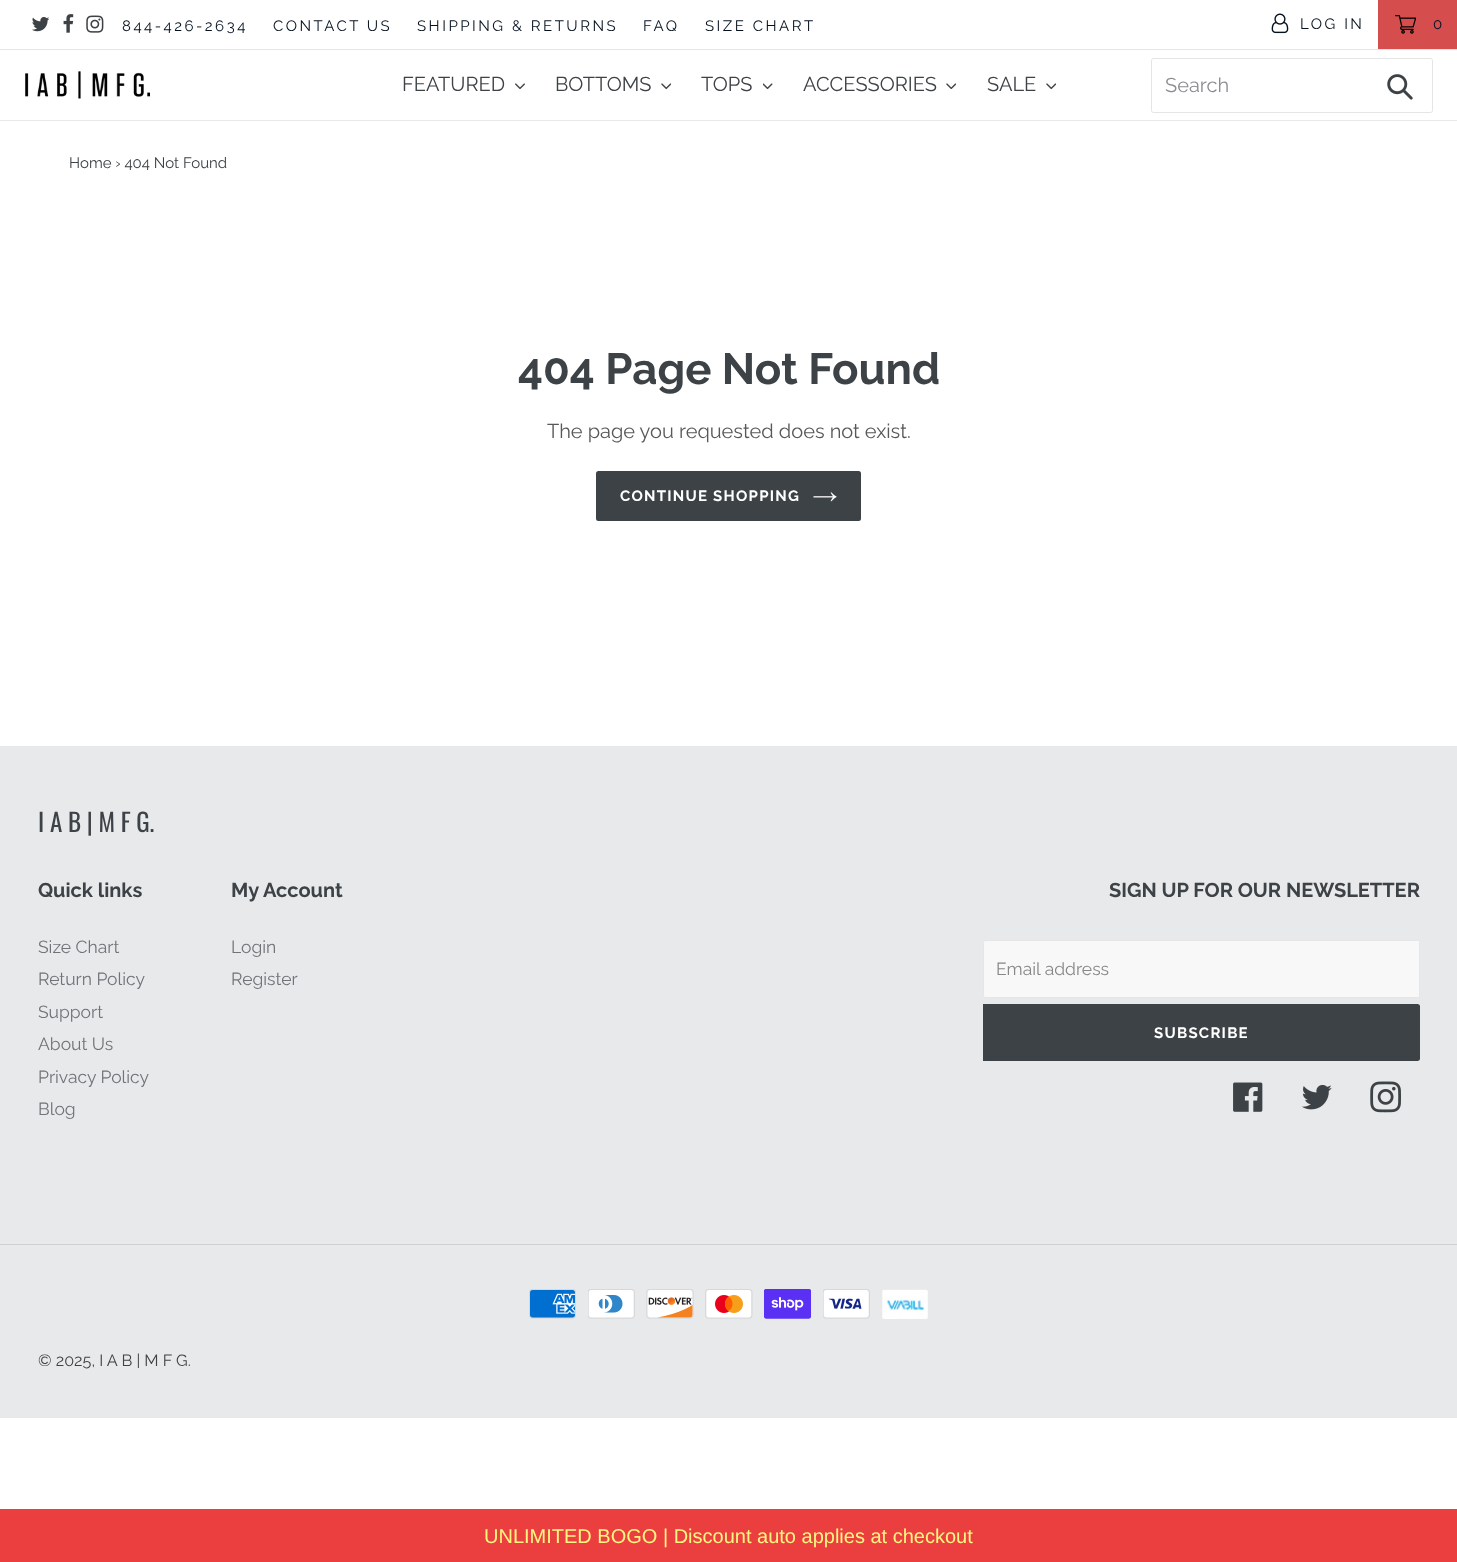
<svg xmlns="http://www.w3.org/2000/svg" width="1457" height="1562">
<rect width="100%" height="100%" fill="#fff"/>
<rect y="49" width="1457" height="1" fill="#e5e5e5"/>
<image x="32" y="17" width="18" height="15" href="media/1.png"/>
<image x="63" y="14" width="11" height="19" href="media/2.png"/>
<image x="86" y="15" width="18" height="18" href="media/3.png"/>
<text x="122" y="31" style="font-family:Raleway;font-size:15px;font-weight:100;letter-spacing:2.5px;fill:#05111e">844-426-2634</text>
<text x="273" y="31" style="font-family:Raleway;font-size:15px;font-weight:100;letter-spacing:2.5px;fill:#05111e">CONTACT US</text>
<text x="417" y="31" style="font-family:Raleway;font-size:15px;font-weight:100;letter-spacing:2.5px;fill:#05111e">SHIPPING &amp; RETURNS</text>
<text x="643" y="31" style="font-family:Raleway;font-size:15px;font-weight:100;letter-spacing:2.5px;fill:#05111e">FAQ</text>
<text x="705" y="31" style="font-family:Raleway;font-size:15px;font-weight:100;letter-spacing:2.5px;fill:#05111e">SIZE CHART</text>
<image x="1271" y="13" width="18" height="21" href="media/4.png"/>
<text x="1300" y="29" style="font-family:Raleway;font-size:15px;font-weight:100;letter-spacing:2.5px;fill:#05111e">LOG IN</text>
<rect x="1378" width="79" height="49" fill="#d54d4d"/>
<image x="1395" y="15" width="21" height="19" href="media/5.png"/>
<text x="1433" y="29" style="font-family:Raleway;font-size:15px;font-weight:100;letter-spacing:2.5px;fill:#05111e">0</text>
<rect y="120" width="1457" height="1" fill="#e8e9eb"/>
<image x="25" y="71" width="125" height="28" href="media/6.png"/>
<text x="402" y="91" style="font-family:Raleway;font-size:20px;font-weight:100;fill:#3d4246">FEATURED</text>
<image x="515" y="83" width="10" height="6" href="media/7.png"/>
<text x="555" y="91" style="font-family:Raleway;font-size:20px;font-weight:100;fill:#3d4246">BOTTOMS</text>
<image x="661" y="83" width="10" height="7" href="media/8.png"/>
<text x="701" y="91" style="font-family:Raleway;font-size:20px;font-weight:100;fill:#3d4246">TOPS</text>
<image x="763" y="83" width="10" height="7" href="media/9.png"/>
<text x="803" y="91" style="font-family:Raleway;font-size:20px;font-weight:100;fill:#3d4246">ACCESSORIES</text>
<image x="946" y="83" width="10" height="7" href="media/8.png"/>
<text x="987" y="91" style="font-family:Raleway;font-size:20px;font-weight:100;fill:#3d4246">SALE</text>
<image x="1046" y="83" width="10" height="7" href="media/8.png"/>
<rect x="1151.5" y="58.5" width="281" height="54" rx="2" fill="none" stroke="#e5e5e5"/>
<text x="1165" y="92" style="font-family:Raleway;font-size:20px;font-weight:100;fill:#8b8e90">Search</text>
<image x="1387" y="74" width="26" height="26" href="media/10.png"/>
<text x="69" y="168" style="font-family:Raleway;font-size:15px;font-weight:100;fill:#3d4246">Home › 404 Not Found</text>
<text x="518" y="384" style="font-family:Raleway;font-size:43.75px;font-weight:bold;fill:#3d4246">404 Page Not Found</text>
<text x="547" y="438" style="font-family:Raleway;font-size:20px;font-weight:100;fill:#585858">The page you requested does not exist.</text>
<rect x="596" y="471" width="265" height="50" rx="2.5" fill="#3d4246"/>
<text x="620" y="501" style="font-family:Raleway;font-size:15px;font-weight:bold;letter-spacing:1.25px;fill:#fff">CONTINUE SHOPPING</text>
<image x="813" y="492" width="24" height="10" href="media/11.png"/>
<rect y="746" width="1457" height="672" fill="#e8e9eb"/>
<text x="38" y="832" style="font-family:Oswald;font-size:25px;fill:#3d4246">I A B | M F G.</text>
<text x="38" y="897" style="font-family:Raleway;font-size:20px;font-weight:bold;fill:#3d4246">Quick links</text>
<text x="38" y="953" style="font-family:Raleway;font-size:17.5px;font-weight:100;fill:#707478">Size Chart</text>
<text x="38" y="985" style="font-family:Raleway;font-size:17.5px;font-weight:100;fill:#707478">Return Policy</text>
<text x="38" y="1018" style="font-family:Raleway;font-size:17.5px;font-weight:100;fill:#707478">Support</text>
<text x="38" y="1050" style="font-family:Raleway;font-size:17.5px;font-weight:100;fill:#707478">About Us</text>
<text x="38" y="1083" style="font-family:Raleway;font-size:17.5px;font-weight:100;fill:#707478">Privacy Policy</text>
<text x="38" y="1115" style="font-family:Raleway;font-size:17.5px;font-weight:100;fill:#707478">Blog</text>
<text x="231" y="897" style="font-family:Raleway;font-size:20px;font-weight:bold;fill:#3d4246">My Account</text>
<text x="231" y="953" style="font-family:Raleway;font-size:17.5px;font-weight:100;fill:#707478">Login</text>
<text x="231" y="985" style="font-family:Raleway;font-size:17.5px;font-weight:100;fill:#707478">Register</text>
<text x="1109" y="897" style="font-family:Raleway;font-size:20px;font-weight:bold;fill:#3d4246">SIGN UP FOR OUR NEWSLETTER</text>
<path d="M985.5 940.5h434v57h-434c-1 0-2-1-2-2v-53c0-1 1-2 2-2z" fill="#f8f8f9" stroke="#e6e6e7"/>
<text x="996" y="975" style="font-family:Raleway;font-size:17.5px;font-weight:100;fill:#878788">Email address</text>
<path d="M983 1004h434.5c1.5 0 2.5 1 2.5 2.5v52c0 1.5-1 2.5-2.5 2.5h-434.5z" fill="#3d4246"/>
<text x="1154" y="1038" style="font-family:Raleway;font-size:15px;font-weight:bold;letter-spacing:1.25px;fill:#fff">SUBSCRIBE</text>
<image x="1233" y="1082" width="30" height="30" href="media/12.png"/>
<image x="1302" y="1084" width="30" height="26" href="media/13.png"/>
<image x="1370" y="1081" width="31" height="32" href="media/14.png"/>
<rect y="1244" width="1457" height="1" fill="#cdcfd3"/>
<image x="529" y="1289" width="47" height="30" href="media/15.png"/>
<image x="588" y="1289" width="47" height="30" href="media/16.png"/>
<image x="646" y="1289" width="48" height="30" href="media/17.png"/>
<image x="705" y="1289" width="48" height="30" href="media/18.png"/>
<image x="764" y="1289" width="47" height="30" href="media/19.png"/>
<image x="823" y="1289" width="47" height="30" href="media/20.png"/>
<image x="882" y="1289" width="46" height="30" href="media/21.png"/>
<text x="38" y="1366" style="font-family:Raleway;font-size:16.25px;font-weight:100;fill:#3d4246">© 2025, I A B | M F G.</text>
<rect y="1509" width="1457" height="53" fill="#eb3e3e"/>
<text x="484" y="1543" style="font-family:Liberation Sans;font-size:20px;fill:#fff681">UNLIMITED BOGO | Discount auto applies at checkout</text>
</svg>
